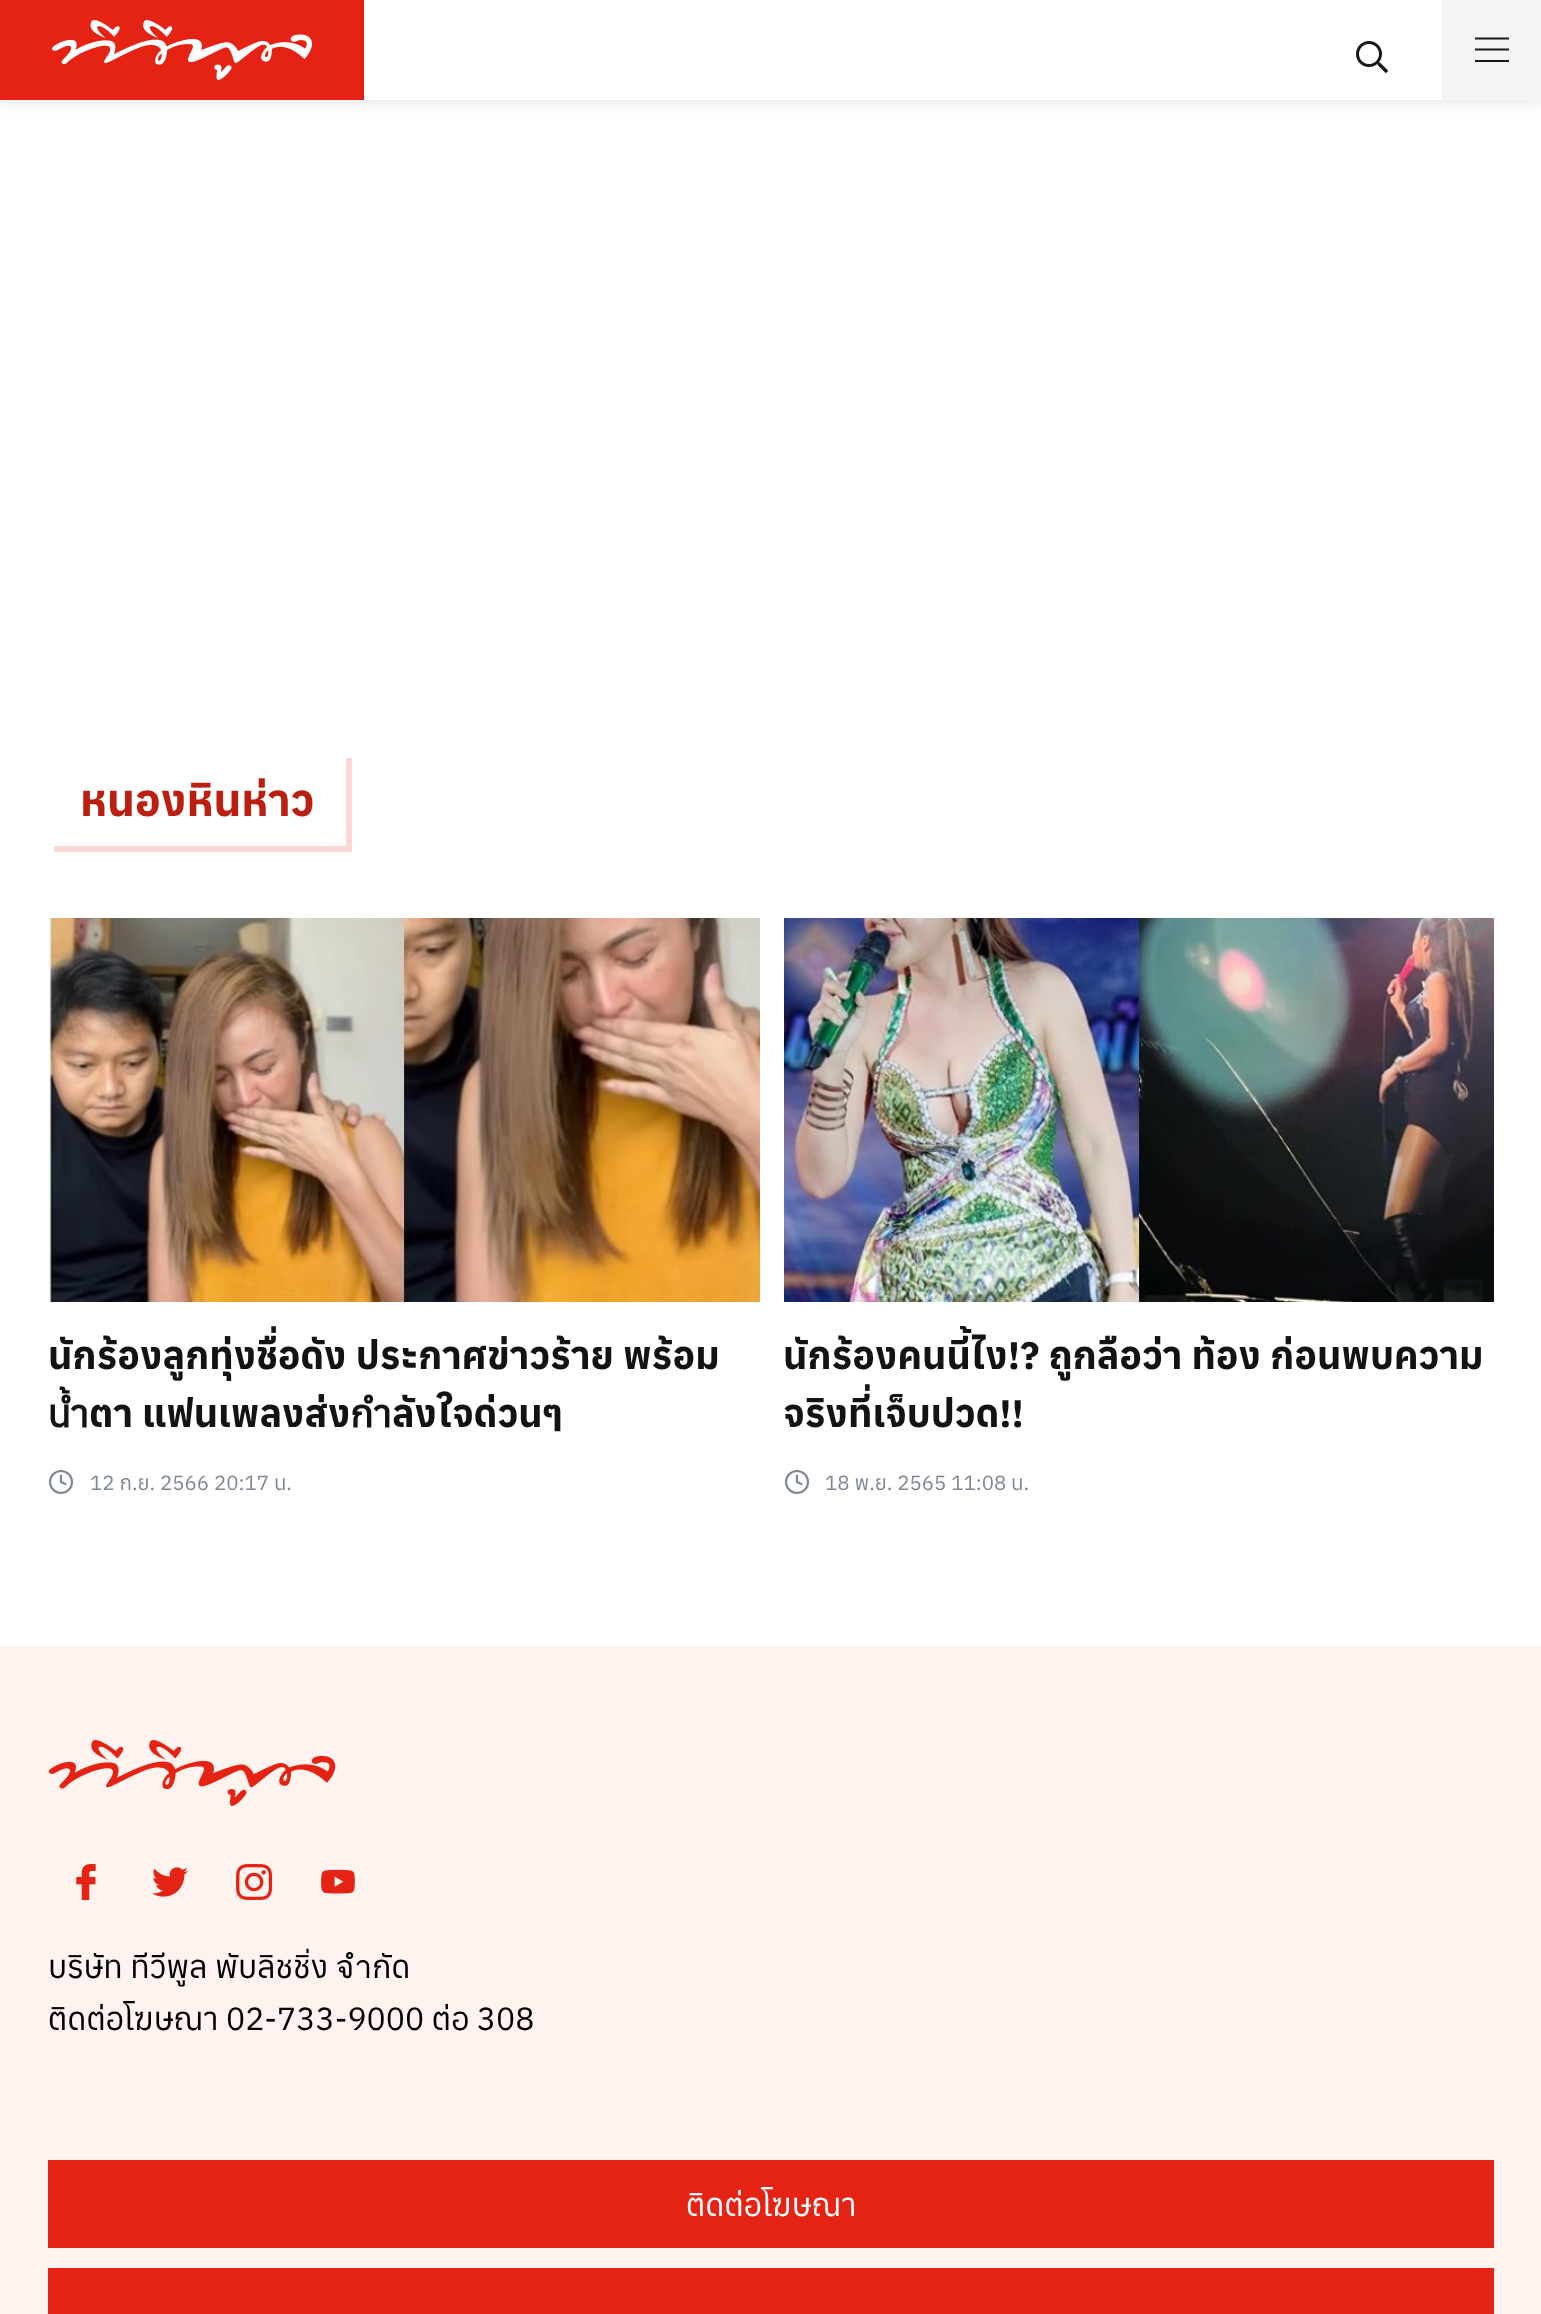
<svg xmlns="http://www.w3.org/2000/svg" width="1541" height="2314">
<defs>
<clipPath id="clip1"><rect x="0" y="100" width="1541" height="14"/></clipPath>
<clipPath id="clip2"><rect x="48" y="1326" width="712" height="114"/></clipPath>
<clipPath id="clip3"><rect x="784" y="1326" width="710" height="114"/></clipPath>
</defs>
<rect width="100%" height="100%" fill="#fff"/>
<g clip-path="url(#clip1)">
<rect y="4" width="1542" height="100" fill="#a9a9a940" filter="blur(7px)"/>
</g>
<rect width="364" height="100" fill="#e42314"/>
<image x="52" y="20" width="260" height="60" href="media/1.png"/>
<image x="1356" y="41" width="32" height="32" href="media/2.png"/>
<rect x="1442" width="99" height="100" fill="#f5f5f5"/>
<path d="M1475 38.5h34m-34 11h34" fill="none" stroke="#181818" stroke-width="2"/>
<rect x="1475" y="60" width="34" height="2" fill="#181818"/>
<path d="M54 846v6h298v-94h-6v88z" fill="#fbd8d3"/>
<text x="80" y="816" style="font-family:Anuphan;font-size:44px;font-weight:bold;fill:#bc1e12">หนองหินห่าว</text>
<image x="48" y="918" width="712" height="384" href="media/3.png"/>
<g clip-path="url(#clip2)">
<text x="48" y="1369" style="font-family:Anuphan;font-size:38.4px;font-weight:bold;fill:#131313">นักร้องลูกทุ่งชื่อดัง ประกาศข่าวร้าย พร้อม</text>
<text x="48" y="1427" style="font-family:Anuphan;font-size:38.4px;font-weight:bold;fill:#131313">น้ำตา แฟนเพลงส่งกำลังใจด่วนๆ</text>
</g>
<circle cx="61" cy="1482" r="11" fill="none" stroke="#7e8993" stroke-width="2.2"/>
<path d="M61 1475.5v6.5l4.5 2" fill="none" stroke="#7e8993" stroke-width="2.2" stroke-linecap="round" stroke-linejoin="round"/>
<text x="90" y="1490" style="font-family:Anuphan;font-size:20.5px;fill:#7e8993">12 ก.ย. 2566 20:17 น.</text>
<image x="784" y="918" width="710" height="384" href="media/4.png"/>
<g clip-path="url(#clip3)">
<text x="783" y="1369" style="font-family:Anuphan;font-size:38.4px;font-weight:bold;fill:#131313">นักร้องคนนี้ไง!? ถูกลือว่า ท้อง ก่อนพบความ</text>
</g>
<text x="783" y="1427" style="font-family:Anuphan;font-size:38.4px;font-weight:bold;fill:#131313">จริงที่เจ็บปวด!!</text>
<circle cx="797" cy="1482" r="11" fill="none" stroke="#7e8993" stroke-width="2.2"/>
<path d="M797 1475.5v6.5l4.5 2" fill="none" stroke="#7e8993" stroke-width="2.2" stroke-linecap="round" stroke-linejoin="round"/>
<text x="825" y="1490" style="font-family:Anuphan;font-size:20.5px;fill:#7e8993">18 พ.ย. 2565 11:08 น.</text>
<rect y="1646" width="1541" height="668" fill="#fff3f0"/>
<image x="48" y="1740" width="288" height="66" href="media/5.png"/>
<image x="76" y="1864" width="20" height="36" href="media/6.png"/>
<image x="152" y="1867" width="36" height="30" href="media/7.png"/>
<image x="236" y="1864" width="36" height="36" href="media/8.png"/>
<image x="321" y="1869" width="34" height="25" href="media/9.png"/>
<text x="48" y="1978" style="font-family:Anuphan;font-size:32px;fill:#000">บริษัท ทีวีพูล พับลิชชิ่ง จำกัด</text>
<text x="48" y="2030" style="font-family:Anuphan;font-size:32px;fill:#000">ติดต่อโฆษณา 02-733-9000 ต่อ 308</text>
<rect x="48" y="2160" width="1446" height="88" fill="#e42314"/>
<text x="686" y="2216" style="font-family:Anuphan;font-size:32px;fill:#fff">ติดต่อโฆษณา</text>
<rect x="48" y="2268" width="1446" height="46" fill="#e42314"/>
</svg>
